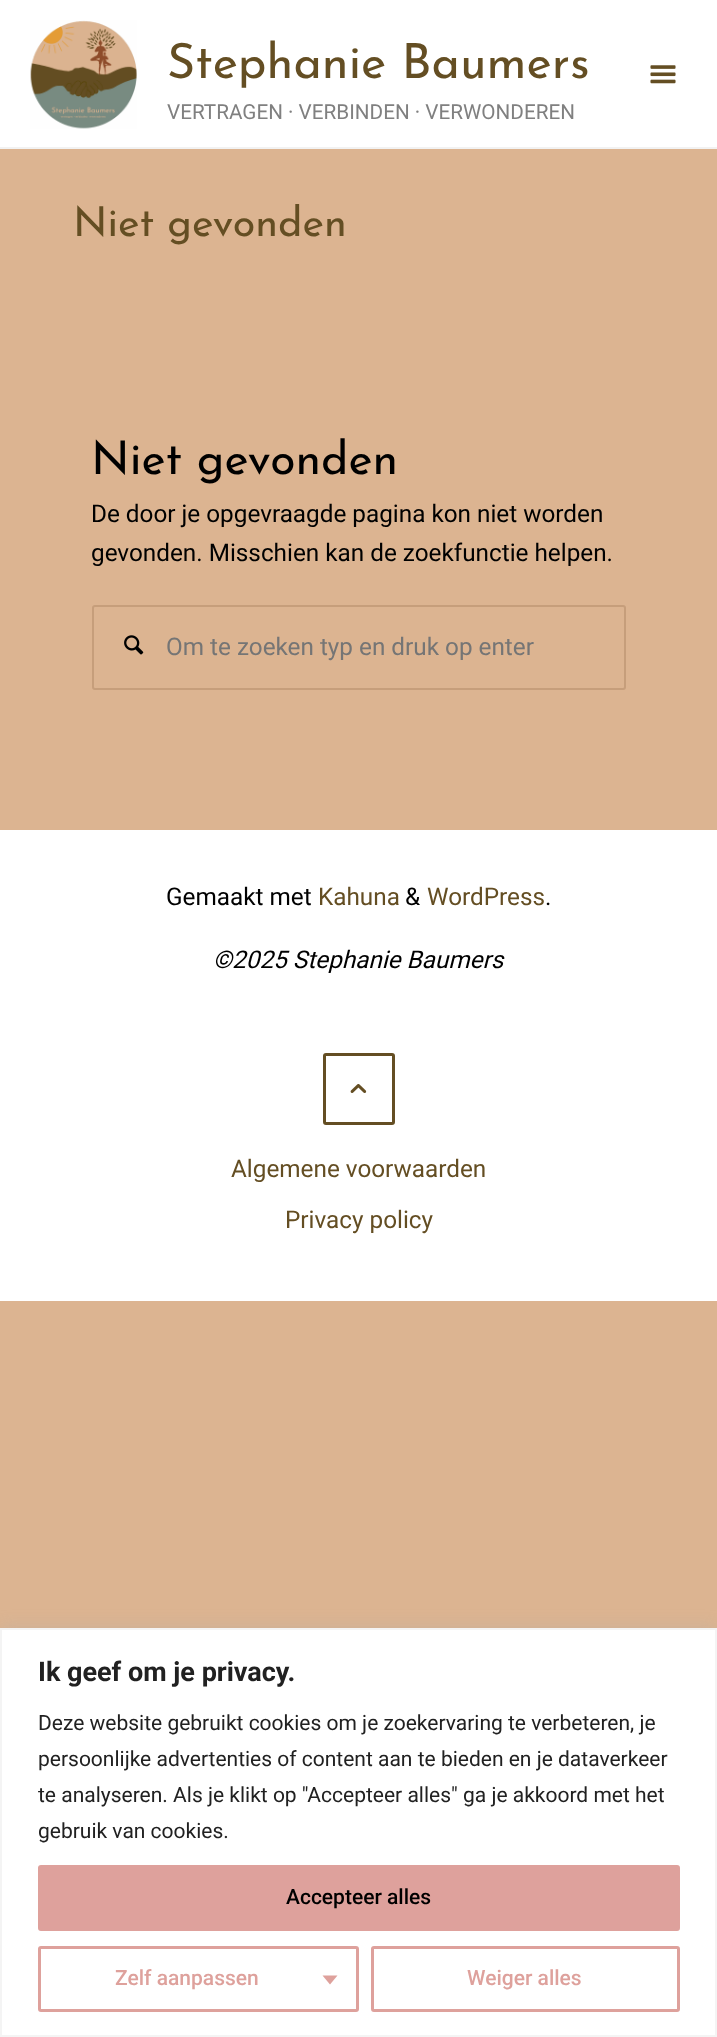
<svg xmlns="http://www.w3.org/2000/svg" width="717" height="2037">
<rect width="100%" height="100%" fill="#dcb491"/>
<rect width="717" height="147" fill="#fff"/>
<rect y="147" width="717" height="2" fill="#f2f2f2"/>
<image x="30" y="20" width="107" height="109" href="media/1.png"/>
<text x="167" y="78" style="font-family:Josefin Sans;font-size:48.5px;font-weight:100;fill:#644e23">Stephanie Baumers</text>
<text x="167" y="119" style="font-family:Roboto;font-size:20.7px;fill:#808080">VERTRAGEN · VERBINDEN · VERWONDEREN</text>
<image x="650" y="65" width="26" height="19" href="media/2.png"/>
<text x="73" y="236" style="font-family:Josefin Sans;font-size:41.25px;font-weight:100;fill:#644e23">Niet gevonden</text>
<text x="91" y="474" style="font-family:Josefin Sans;font-size:46.25px;font-weight:100;fill:#000">Niet gevonden</text>
<text x="91" y="522" style="font-family:Roboto;font-size:24.3px;fill:#000">De door je opgevraagde pagina kon niet worden</text>
<text x="91" y="561" style="font-family:Roboto;font-size:24.3px;fill:#000">gevonden. Misschien kan de zoekfunctie helpen.</text>
<rect x="93" y="606" width="532" height="83" rx="2" fill="none" stroke="#c69e7b" stroke-width="2"/>
<image x="124" y="635" width="20" height="20" href="media/3.png"/>
<text x="166" y="655" style="font-family:Roboto;font-size:24.3px;fill:#757575">Om te zoeken typ en druk op enter</text>
<rect y="830" width="717" height="471" fill="#fff"/>
<text x="166" y="905" style="font-family:Roboto;font-size:24.3px;fill:#000">Gemaakt met</text>
<text x="318" y="905" style="font-family:Roboto;font-size:24.3px;fill:#644e23">Kahuna</text>
<text x="405" y="905" style="font-family:Roboto;font-size:24.3px;fill:#000">&amp;</text>
<text x="427" y="905" style="font-family:Roboto;font-size:24.3px;fill:#644e23">WordPress</text>
<text x="545" y="905" style="font-family:Roboto;font-size:24.3px;fill:#000">.</text>
<text x="213" y="968" style="font-family:Roboto;font-size:24.3px;font-style:italic;fill:#000">©2025 Stephanie Baumers</text>
<rect x="324.5" y="1054.5" width="69" height="69" rx="1.5" fill="none" stroke="#644e23" stroke-width="3"/>
<image x="350" y="1084" width="17" height="9" href="media/4.png"/>
<text x="231" y="1177" style="font-family:Roboto;font-size:24.3px;fill:#644e23">Algemene voorwaarden</text>
<text x="285" y="1228" style="font-family:Roboto;font-size:24.3px;fill:#644e23">Privacy policy</text>
<rect y="1626" width="717" height="410" fill="#acabab4d" filter="blur(7.5px)"/>
<rect x="1" y="1629" width="715" height="407" fill="#fff" stroke="#f4f4f4" stroke-width="2"/>
<text x="38" y="1681" style="font-family:Roboto;font-size:27px;font-weight:bold;fill:#212121">Ik geef om je privacy.</text>
<text x="38" y="1730" style="font-family:Roboto;font-size:21px;fill:#212121">Deze website gebruikt cookies om je zoekervaring te verbeteren, je</text>
<text x="38" y="1766" style="font-family:Roboto;font-size:21px;fill:#212121">persoonlijke advertenties of content aan te bieden en je dataverkeer</text>
<text x="38" y="1802" style="font-family:Roboto;font-size:21px;fill:#212121">te analyseren. Als je klikt op "Accepteer alles" ga je akkoord met het</text>
<text x="38" y="1838" style="font-family:Roboto;font-size:21px;fill:#212121">gebruik van cookies.</text>
<rect x="39.5" y="1866.5" width="639" height="63" rx="1.5" fill="#dea19c" stroke="#dea19c" stroke-width="3"/>
<text x="286" y="1904" style="font-family:Roboto;font-size:21px;font-weight:500;fill:#000">Accepteer alles</text>
<rect x="39.5" y="1947.5" width="318" height="63" rx="1.5" fill="none" stroke="#dea19c" stroke-width="3"/>
<text x="115" y="1985" style="font-family:Roboto;font-size:21px;font-weight:500;fill:#dea19c">Zelf aanpassen</text>
<path d="M322.5 1975.5h15l-7.5 9z" fill="#dea19c"/>
<rect x="372.5" y="1947.5" width="306" height="63" rx="1.5" fill="none" stroke="#dea19c" stroke-width="3"/>
<text x="467" y="1985" style="font-family:Roboto;font-size:21px;font-weight:500;fill:#dea19c">Weiger alles</text>
</svg>
